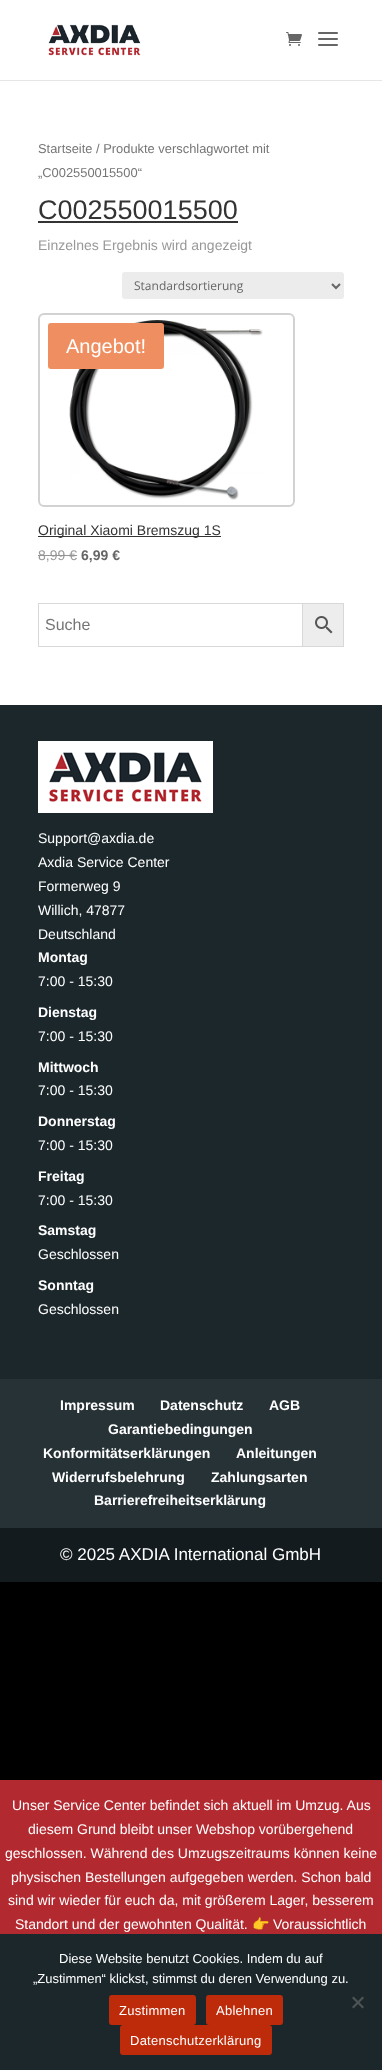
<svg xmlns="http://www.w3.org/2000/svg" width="382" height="2070">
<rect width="100%" height="100%" fill="#000"/>
<rect y="80" width="382" height="1" fill="#e6e6e6"/>
<rect width="382" height="80" fill="#fff"/>
<image x="48" y="24" width="93" height="32" href="media/1.png"/>
<image x="286" y="32" width="16" height="14" href="media/2.png"/>
<image x="318" y="32" width="20" height="14" href="media/3.png"/>
<rect y="81" width="382" height="624" fill="#fff"/>
<text x="38" y="153" style="font-family:Liberation Sans;font-size:12.9px;fill:#767676">Startseite / Produkte verschlagwortet mit</text>
<text x="38" y="177" style="font-family:Liberation Sans;font-size:12.9px;fill:#767676">„C002550015500“</text>
<text x="38" y="219" style="font-family:Liberation Sans;font-size:27px;fill:#333">C002550015500</text>
<rect x="38" y="221" width="200" height="2" fill="#333"/>
<text x="38" y="250" style="font-family:Liberation Sans;font-size:14px;fill:#999">Einzelnes Ergebnis wird angezeigt</text>
<rect x="122" y="272" width="222" height="27" rx="3" fill="#ececec"/>
<path d="M332 284l4 4l4-4" fill="none" stroke="#666" stroke-width="2"/>
<text x="134" y="290" style="font-family:Open Sans;font-size:12px;fill:#666">Standardsortierung</text>
<rect x="39" y="314" width="255" height="192" rx="5" fill="none" stroke="#d2d2d2" stroke-width="2"/>
<image x="69" y="320" width="194" height="180" href="media/4.png"/>
<rect x="48" y="323" width="116" height="46" rx="3" fill="#ef8f61"/>
<text x="66" y="353" style="font-family:Liberation Sans;font-size:20px;fill:#fff">Angebot!</text>
<rect x="38" y="536" width="183" height="1" fill="#333"/>
<text x="38" y="535" style="font-family:Liberation Sans;font-size:14px;fill:#333">Original Xiaomi Bremszug 1S</text>
<text x="38" y="560" style="font-family:Liberation Sans;font-size:14px;fill:#999">8,99 €</text>
<rect x="38" y="555" width="39" height="1" fill="#949494"/>
<text x="81" y="560" style="font-family:Liberation Sans;font-size:14px;font-weight:bold;fill:#666">6,99 €</text>
<rect x="302.5" y="603.5" width="41" height="43" fill="#ededed" stroke="#d8d8d8"/>
<rect x="38.5" y="603.5" width="264" height="43" fill="none" stroke="#d8d8d8"/>
<text x="45" y="630" style="font-family:Liberation Sans;font-size:16px;fill:#767676">Suche</text>
<image x="315" y="616" width="18" height="18" href="media/5.png"/>
<rect y="705" width="382" height="674" fill="#1c272c"/>
<image x="38" y="741" width="175" height="72" href="media/6.png"/>
<text x="38" y="843" style="font-family:Liberation Sans;font-size:14px;fill:#fff">Support@axdia.de</text>
<text x="38" y="867" style="font-family:Liberation Sans;font-size:14px;fill:#fff">Axdia Service Center</text>
<text x="38" y="891" style="font-family:Liberation Sans;font-size:14px;fill:#fff">Formerweg 9</text>
<text x="38" y="915" style="font-family:Liberation Sans;font-size:14px;fill:#fff">Willich, 47877</text>
<text x="38" y="939" style="font-family:Liberation Sans;font-size:14px;fill:#fff">Deutschland</text>
<text x="38" y="962" style="font-family:Liberation Sans;font-size:14px;font-weight:bold;fill:#fff">Montag</text>
<text x="38" y="986" style="font-family:Liberation Sans;font-size:14px;fill:#fff">7:00 - 15:30</text>
<text x="38" y="1017" style="font-family:Liberation Sans;font-size:14px;font-weight:bold;fill:#fff">Dienstag</text>
<text x="38" y="1041" style="font-family:Liberation Sans;font-size:14px;fill:#fff">7:00 - 15:30</text>
<text x="38" y="1072" style="font-family:Liberation Sans;font-size:14px;font-weight:bold;fill:#fff">Mittwoch</text>
<text x="38" y="1095" style="font-family:Liberation Sans;font-size:14px;fill:#fff">7:00 - 15:30</text>
<text x="38" y="1126" style="font-family:Liberation Sans;font-size:14px;font-weight:bold;fill:#fff">Donnerstag</text>
<text x="38" y="1150" style="font-family:Liberation Sans;font-size:14px;fill:#fff">7:00 - 15:30</text>
<text x="38" y="1181" style="font-family:Liberation Sans;font-size:14px;font-weight:bold;fill:#fff">Freitag</text>
<text x="38" y="1205" style="font-family:Liberation Sans;font-size:14px;fill:#fff">7:00 - 15:30</text>
<text x="38" y="1235" style="font-family:Liberation Sans;font-size:14px;font-weight:bold;fill:#fff">Samstag</text>
<text x="38" y="1259" style="font-family:Liberation Sans;font-size:14px;fill:#fff">Geschlossen</text>
<text x="38" y="1290" style="font-family:Liberation Sans;font-size:14px;font-weight:bold;fill:#fff">Sonntag</text>
<text x="38" y="1314" style="font-family:Liberation Sans;font-size:14px;fill:#fff">Geschlossen</text>
<rect y="1379" width="382" height="149" fill="#273237"/>
<text x="60" y="1410" style="font-family:Liberation Sans;font-size:14px;font-weight:bold;fill:#fff">Impressum</text>
<text x="160" y="1410" style="font-family:Liberation Sans;font-size:14px;font-weight:bold;fill:#fff">Datenschutz</text>
<text x="269" y="1410" style="font-family:Liberation Sans;font-size:14px;font-weight:bold;fill:#fff">AGB</text>
<text x="108" y="1434" style="font-family:Liberation Sans;font-size:14px;font-weight:bold;fill:#fff">Garantiebedingungen</text>
<text x="43" y="1458" style="font-family:Liberation Sans;font-size:14px;font-weight:bold;fill:#fff">Konformitätserklärungen</text>
<text x="236" y="1458" style="font-family:Liberation Sans;font-size:14px;font-weight:bold;fill:#fff">Anleitungen</text>
<text x="52" y="1482" style="font-family:Liberation Sans;font-size:14px;font-weight:bold;fill:#fff">Widerrufsbelehrung</text>
<text x="211" y="1482" style="font-family:Liberation Sans;font-size:14px;font-weight:bold;fill:#fff">Zahlungsarten</text>
<text x="94" y="1505" style="font-family:Liberation Sans;font-size:14px;font-weight:bold;fill:#fff">Barrierefreiheitserklärung</text>
<rect y="1528" width="382" height="54" fill="#131b1e"/>
<text x="60" y="1560" style="font-family:Liberation Sans;font-size:17px;fill:#fff">© 2025 AXDIA International GmbH</text>
<rect y="1780" width="382" height="154" fill="#b22930"/>
<text x="12" y="1810" style="font-family:Liberation Sans;font-size:14px;fill:#fff">Unser Service Center befindet sich aktuell im Umzug. Aus</text>
<text x="28" y="1834" style="font-family:Liberation Sans;font-size:14px;fill:#fff">diesem Grund bleibt unser Webshop vorübergehend</text>
<text x="5" y="1858" style="font-family:Liberation Sans;font-size:14px;fill:#fff">geschlossen. Während des Umzugszeitraums können keine</text>
<text x="11" y="1882" style="font-family:Liberation Sans;font-size:14px;fill:#fff">physischen Bestellungen aufgegeben werden. Schon bald</text>
<text x="8" y="1905" style="font-family:Liberation Sans;font-size:14px;fill:#fff">sind wir wieder für euch da, mit größerem Lager, besserem</text>
<text x="15" y="1929" style="font-family:Liberation Sans;font-size:14px;fill:#fff">Standort und der gewohnten Qualität.</text>
<text x="252" y="1929" style="font-family:Noto Color Emoji;font-size:14px;fill:#fff">👉</text>
<text x="273" y="1929" style="font-family:Liberation Sans;font-size:14px;fill:#fff">Voraussichtlich</text>
<rect y="1934" width="382" height="136" fill="#1c272c"/>
<text x="59" y="1963" style="font-family:Liberation Sans;font-size:13px;fill:#fff">Diese Website benutzt Cookies. Indem du auf</text>
<text x="33" y="1983" style="font-family:Liberation Sans;font-size:13px;fill:#fff">„Zustimmen“ klickst, stimmst du deren Verwendung zu.</text>
<path d="M362.5 1996.5l1.5 1.5l-10.5 10.5l-1.5-1.5z" fill="#4e5456"/>
<path d="M352 1998l1.5-1.5l10.5 10.5l-1.5 1.5z" fill="#4e5456"/>
<rect x="109" y="1995" width="87" height="30" rx="3" fill="#bd2b0b"/>
<text x="119" y="2015" style="font-family:Liberation Sans;font-size:13px;letter-spacing:0.25px;fill:#fff">Zustimmen</text>
<rect x="206" y="1995" width="77" height="30" rx="3" fill="#bd2b0b"/>
<text x="216" y="2015" style="font-family:Liberation Sans;font-size:13px;letter-spacing:0.25px;fill:#fff">Ablehnen</text>
<rect x="120" y="2025" width="152" height="30" rx="3" fill="#bd2b0b"/>
<text x="130" y="2045" style="font-family:Liberation Sans;font-size:13px;letter-spacing:0.25px;fill:#fff">Datenschutzerklärung</text>
</svg>
